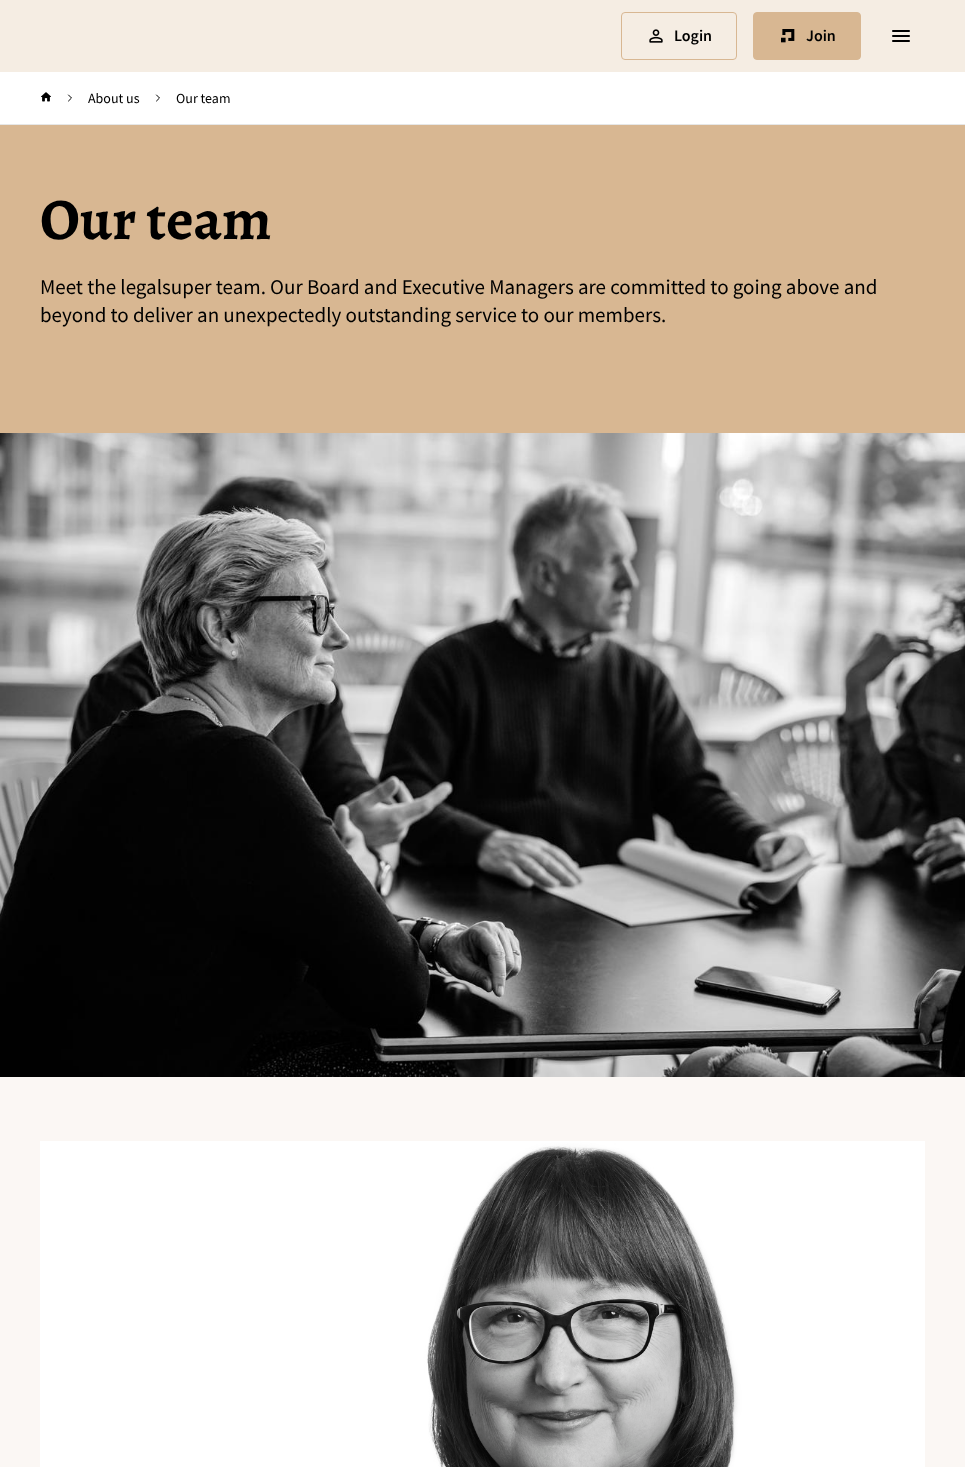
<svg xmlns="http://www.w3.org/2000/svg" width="965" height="1467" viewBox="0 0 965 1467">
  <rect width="100%" height="100%" fill="#ffffff"/>
  <rect x="0" y="0" width="965" height="72" fill="#f5ede3"/>
  <rect x="621.5" y="12.5" width="115" height="47" rx="3.5" fill="none" stroke="#d8b792"/>
  <image x="649" y="29" width="14" height="14" href="img1.png"/>
  <text x="674" y="41" font-family="Source Sans Pro" font-size="16" font-weight="600" fill="#000000">Login</text>
  <rect x="753.5" y="12.5" width="107" height="47" rx="3.5" fill="#d8b792" stroke="#d8b792"/>
  <image x="781" y="29" width="14" height="14" href="img2.png"/>
  <text x="806" y="41" font-family="Source Sans Pro" font-size="16" font-weight="600" fill="#000000">Join</text>
  <image x="892" y="30" width="18" height="12" href="img3.png"/>
  <rect x="0" y="124" width="965" height="1" fill="#e6e7e7"/>
  <image x="41" y="92" width="10" height="10" href="img4.png"/>
  <path d="M68.5 101L71.5 98L68.5 95" fill="none" stroke="#000000" stroke-linecap="round" stroke-linejoin="round"/>
  <text x="88" y="103" font-family="Source Sans Pro" font-size="14" fill="#000000">About us</text>
  <path d="M156.5 101L159.5 98L156.5 95" fill="none" stroke="#000000" stroke-linecap="round" stroke-linejoin="round"/>
  <text x="176" y="103" font-family="Source Sans Pro" font-size="14" fill="#000000">Our team</text>
  <rect x="0" y="125" width="965" height="308" fill="#d8b792"/>
  <text x="40" y="239" font-family="Alegreya" font-size="59" font-weight="bold" fill="#000000">Our team</text>
  <text x="40" y="294" font-family="Source Sans Pro" font-size="21" fill="#000000">Meet the legalsuper team. Our Board and Executive Managers are committed to going above and</text>
  <text x="40" y="322" font-family="Source Sans Pro" font-size="21" fill="#000000">beyond to deliver an unexpectedly outstanding service to our members.</text>
  <image x="0" y="433" width="965" height="644" href="img5.png"/>
  <rect x="0" y="1077" width="965" height="390" fill="#fbf7f4"/>
  <image x="40" y="1141" width="885" height="326" href="img6.png"/>
</svg>
